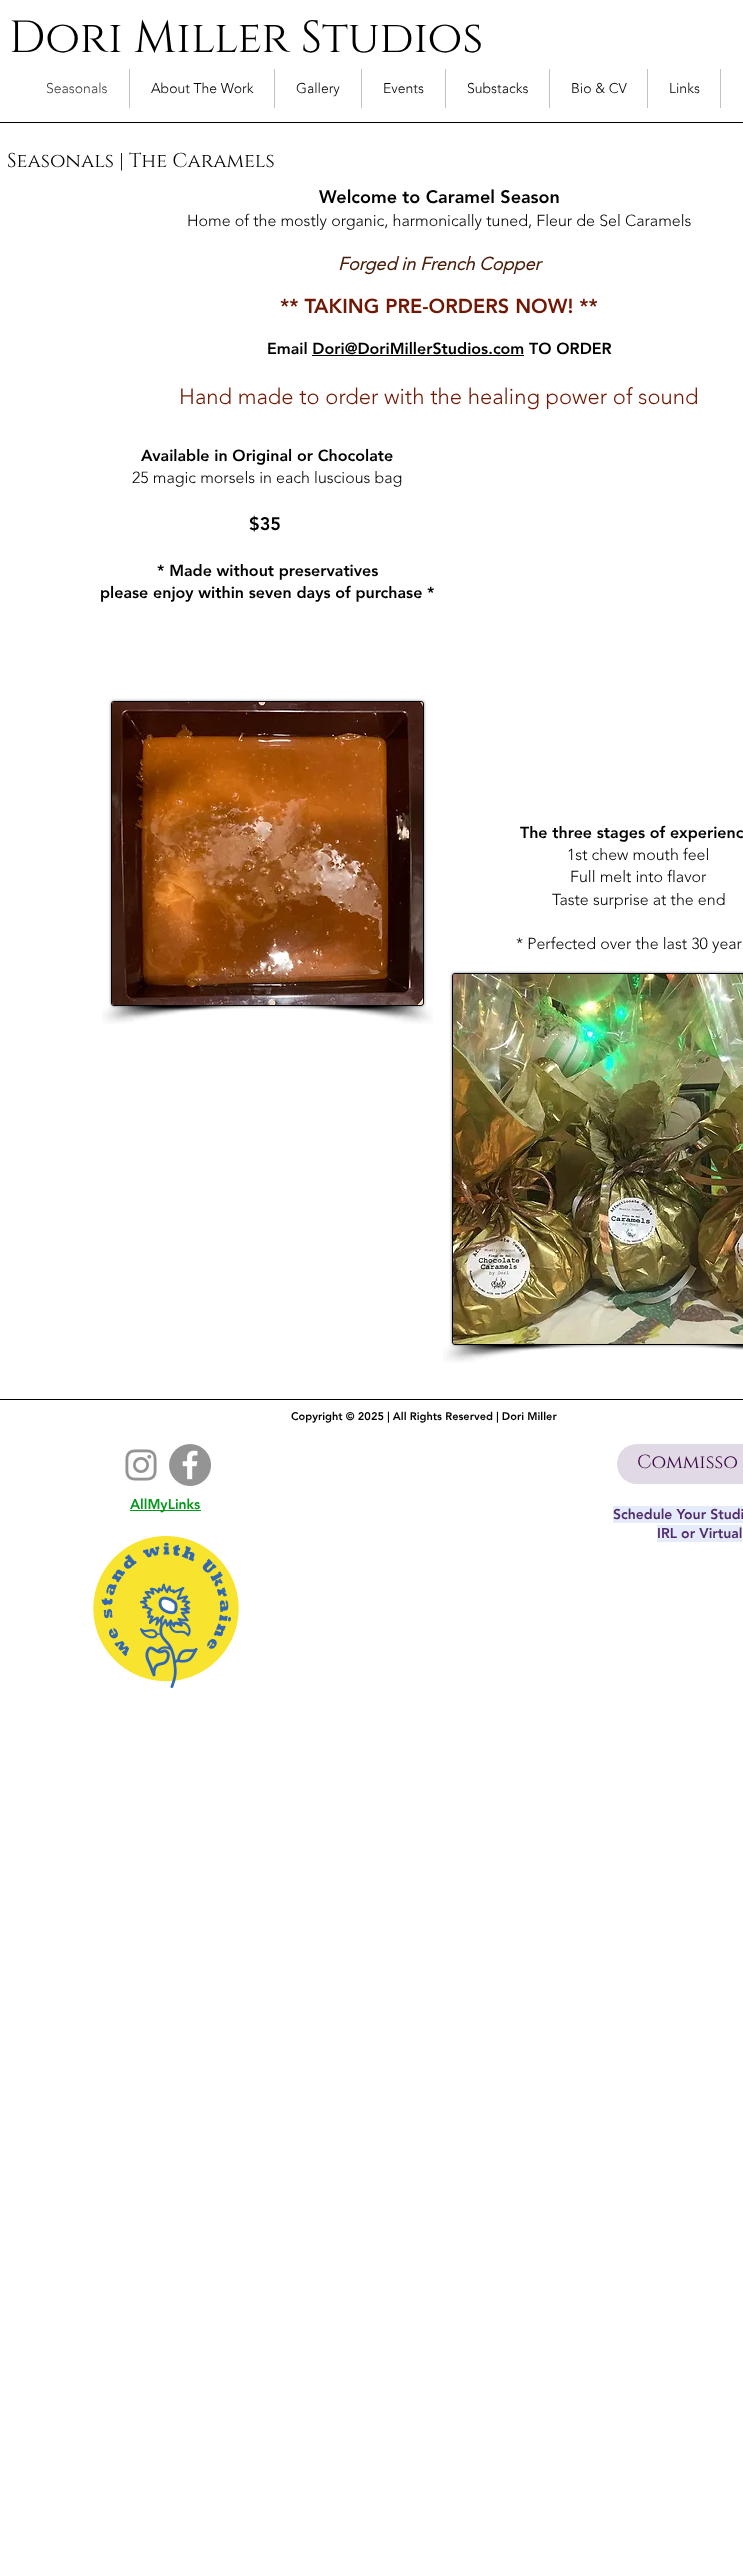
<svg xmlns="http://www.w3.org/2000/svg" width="743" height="2554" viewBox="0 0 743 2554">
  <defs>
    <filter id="blur1" x="-50%" y="-200%" width="200%" height="500%"><feGaussianBlur stdDeviation="1.5"/></filter>
  </defs>
  <rect width="100%" height="100%" fill="#ffffff"/>
  <text x="9" y="52" font-family="Cinzel" font-size="45" fill="#000000">Dori Miller Studios</text>
  <text x="46" y="93" font-family="'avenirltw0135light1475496'" font-size="14" font-weight="300" fill="#404040">Seasonals</text>
  <rect x="129" y="69" width="1" height="39" fill="#c2c2c2"/>
  <text x="151" y="93" font-family="'avenirltw0135light1475496'" font-size="14" font-weight="300" fill="#000000">About The Work</text>
  <rect x="274" y="69" width="1" height="39" fill="#c2c2c2"/>
  <text x="296" y="93" font-family="'avenirltw0135light1475496'" font-size="14" font-weight="300" fill="#000000">Gallery</text>
  <rect x="361" y="69" width="1" height="39" fill="#c2c2c2"/>
  <text x="383" y="93" font-family="'avenirltw0135light1475496'" font-size="14" font-weight="300" fill="#000000">Events</text>
  <rect x="445" y="69" width="1" height="39" fill="#c2c2c2"/>
  <text x="467" y="93" font-family="'avenirltw0135light1475496'" font-size="14" font-weight="300" fill="#000000">Substacks</text>
  <rect x="549" y="69" width="1" height="39" fill="#c2c2c2"/>
  <text x="571" y="93" font-family="'avenirltw0135light1475496'" font-size="14" font-weight="300" fill="#000000">Bio &amp; CV</text>
  <rect x="647" y="69" width="1" height="39" fill="#c2c2c2"/>
  <text x="669" y="93" font-family="'avenirltw0135light1475496'" font-size="14" font-weight="300" fill="#000000">Links</text>
  <rect x="720" y="69" width="1" height="39" fill="#c2c2c2"/>
  <rect x="0" y="122" width="743" height="1" fill="#000000"/>
  <text x="7" y="167" font-family="Cinzel" font-size="20" fill="#000000">Seasonals | The Caramels</text>
  <text x="319" y="203" font-family="'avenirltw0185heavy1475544'" font-size="18" font-weight="900" fill="#000000">Welcome to Caramel Season</text>
  <text x="187" y="226" font-family="'avenirltw0135light1475496'" font-size="16" font-weight="300" fill="#000000">Home of the mostly organic, harmonically tuned, Fleur de Sel Caramels</text>
  <text x="338" y="270" font-family="'avenirltw0135light1475496'" font-size="18" font-weight="bold" font-style="italic" fill="#491d09">Forged in French Copper</text>
  <text x="280" y="313" font-family="'avenirltw0185heavy1475544'" font-size="20" font-weight="900" fill="#711804">** TAKING PRE-ORDERS NOW! **</text>
  <text x="267" y="354" font-family="'avenirltw0185heavy1475544'" font-size="16" font-weight="900" fill="#000000">Email Dori@DoriMillerStudios.com TO ORDER</text>
  <rect x="312" y="355" width="212" height="1" fill="#000000"/>
  <text x="179" y="404" font-family="'avenirltw0135light1475496'" font-size="22" font-weight="300" fill="#711804">Hand made to order with the healing power of sound</text>
  <text x="141" y="461" font-family="'avenirltw0185heavy1475544'" font-size="16" font-weight="900" fill="#000000">Available in Original or Chocolate</text>
  <text x="132" y="483" font-family="'avenirltw0135light1475496'" font-size="16" font-weight="300" fill="#000000">25 magic morsels in each luscious bag</text>
  <text x="249" y="530" font-family="'avenirltw0185heavy1475544'" font-size="18" font-weight="900" fill="#000000">$35</text>
  <text x="157" y="576" font-family="'avenirltw0185heavy1475544'" font-size="16" font-weight="900" fill="#000000">* Made without preservatives</text>
  <text x="100" y="598" font-family="'avenirltw0185heavy1475544'" font-size="16" font-weight="900" fill="#000000">please enjoy within seven days of purchase *</text>
  <rect x="111" y="701" width="313" height="305" rx="3" fill="#000000" fill-opacity="0.5" filter="url(#blur1)"/>
  <rect x="111.5" y="701.5" width="312" height="304" rx="2.5" fill="none" stroke="#000000"/>
  <image x="112" y="702" width="311" height="303" href="img1.png"/>
  <image x="102" y="1006" width="154" height="18" href="img2.png"/>
  <image x="279" y="1006" width="154" height="18" href="img3.png"/>
  <text x="520" y="838" font-family="'avenirltw0185heavy1475544'" font-size="16" font-weight="900" fill="#000000">The three stages of experienc</text>
  <text x="567" y="860" font-family="'avenirltw0135light1475496'" font-size="16" font-weight="300" fill="#000000">1st chew mouth feel</text>
  <text x="570" y="882" font-family="'avenirltw0135light1475496'" font-size="16" font-weight="300" fill="#000000">Full melt into flavor</text>
  <text x="552" y="905" font-family="'avenirltw0135light1475496'" font-size="16" font-weight="300" fill="#000000">Taste surprise at the end</text>
  <text x="516" y="949" font-family="'avenirltw0135light1475496'" font-size="16" font-weight="300" fill="#000000">* Perfected over the last 30 year</text>
  <rect x="452" y="973" width="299" height="372" rx="3" fill="#000000" fill-opacity="0.5" filter="url(#blur1)"/>
  <rect x="452.5" y="973.5" width="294" height="371" rx="2.5" fill="none" stroke="#000000"/>
  <image x="453" y="974" width="290" height="370" href="img4.png"/>
  <image x="443" y="1345" width="154" height="18" href="img2.png"/>
  <image x="679" y="1345" width="64" height="5" href="img5.png"/>
  <rect x="0" y="1399" width="743" height="1" fill="#000000"/>
  <text x="291" y="1420" font-family="'avenirltw0185heavy1475544'" font-size="11" font-weight="900" fill="#000000">Copyright © 2025 | All Rights Reserved | Dori Miller</text>
  <image x="125" y="1449" width="32" height="32" href="img6.png"/>
  <image x="169" y="1444" width="42" height="42" href="img7.png"/>
  <rect x="617" y="1444" width="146" height="40" rx="20" fill="#e1d9e3"/>
  <text x="637" y="1468" font-family="Cinzel" font-size="19" fill="#3a0247">Commisso</text>
  <rect x="130" y="1510" width="71" height="1" fill="#06981c"/>
  <text x="130" y="1509" font-family="'avenirltw0185heavy1475544'" font-size="14" font-weight="900" fill="#06981c">AllMyLinks</text>
  <rect x="613" y="1506" width="130" height="17" fill="#e5ebfa"/>
  <text x="613" y="1519" font-family="'avenirltw0185heavy1475544'" font-size="14" font-weight="900" fill="#502d6d">Schedule Your Studi</text>
  <rect x="657" y="1525" width="85" height="17" fill="#e5ebfa"/>
  <text x="657" y="1538" font-family="'avenirltw0185heavy1475544'" font-size="14" font-weight="900" fill="#502d6d">IRL or Virtual</text>
  <image x="93" y="1536" width="146" height="152" href="img8.png"/>
</svg>
